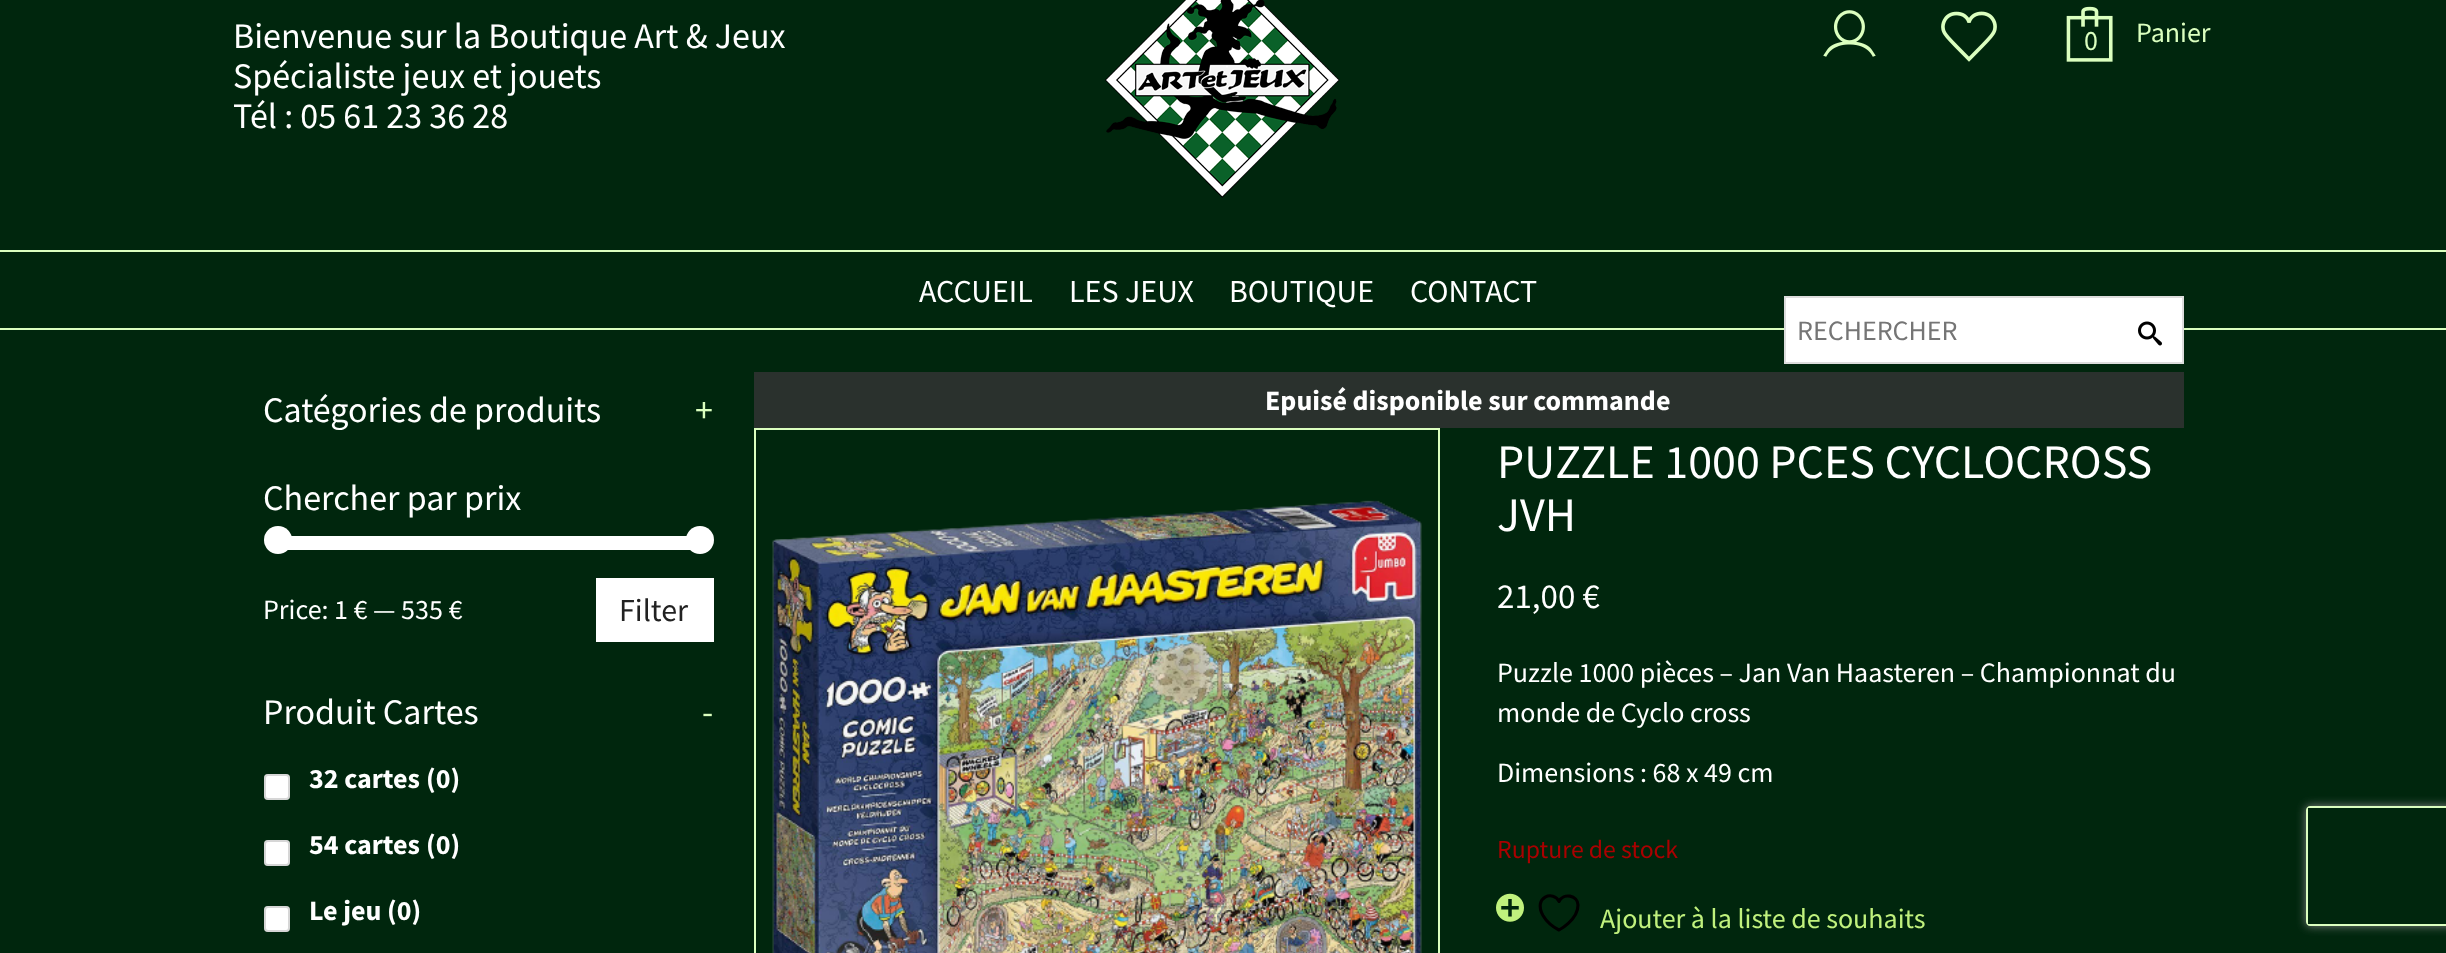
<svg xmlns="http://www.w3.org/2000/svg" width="2446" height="953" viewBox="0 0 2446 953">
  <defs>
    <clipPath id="clip1"><path d="M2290 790H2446V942H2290ZM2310 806H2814C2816 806 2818 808 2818 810V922C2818 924 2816 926 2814 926H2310C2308 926 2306 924 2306 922V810C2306 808 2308 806 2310 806Z" clip-rule="evenodd"/></clipPath>
    <filter id="blur1" x="-50%" y="-200%" width="200%" height="500%"><feGaussianBlur stdDeviation="5"/></filter>
  </defs>
  <rect width="100%" height="100%" fill="#00260d"/>
  <text x="233" y="48" font-family="Source Sans Pro" font-size="36" fill="#ffffff">Bienvenue sur la Boutique Art &amp; Jeux</text>
  <text x="233" y="88" font-family="Source Sans Pro" font-size="36" fill="#ffffff">Spécialiste jeux et jouets</text>
  <text x="233" y="128" font-family="Source Sans Pro" font-size="36" fill="#ffffff">Tél : 05 61 23 36 28</text>
  <image x="1105" y="0" width="235" height="198" href="img1.png"/>
  <image x="1823" y="10" width="53" height="47" href="img2.png"/>
  <image x="1941" y="11" width="56" height="51" href="img3.png"/>
  <image x="2066" y="6" width="47" height="56" href="img4.png"/>
  <text x="2136" y="42" font-family="Source Sans Pro" font-size="28" fill="#dbffbf">Panier</text>
  <text x="2084" y="50" font-family="Source Sans Pro" font-size="28" fill="#dbffbf">0</text>
  <rect x="0" y="250" width="2446" height="2" fill="#dbffbf"/>
  <rect x="0" y="328" width="2446" height="2" fill="#dbffbf"/>
  <text x="919" y="302" font-family="Source Sans Pro" font-size="32" fill="#ffffff">ACCUEIL</text>
  <text x="1069" y="302" font-family="Source Sans Pro" font-size="32" fill="#ffffff">LES JEUX</text>
  <text x="1229" y="302" font-family="Source Sans Pro" font-size="32" fill="#ffffff">BOUTIQUE</text>
  <text x="1410" y="302" font-family="Source Sans Pro" font-size="32" fill="#ffffff">CONTACT</text>
  <rect x="1785" y="297" width="398" height="66" fill="#ffffff" stroke="#dddddd" stroke-width="2"/>
  <text x="1797" y="340" font-family="Source Sans Pro" font-size="28" fill="#757575">RECHERCHER</text>
  <image x="2138" y="321" width="24" height="25" href="img5.png"/>
  <text x="263" y="422" font-family="Source Sans Pro" font-size="36" fill="#ffffff">Catégories de produits</text>
  <text x="695" y="422" font-family="Source Sans Pro" font-size="36" fill="#dbffbf">+</text>
  <text x="263" y="510" font-family="Source Sans Pro" font-size="36" fill="#ffffff">Chercher par prix</text>
  <rect x="287" y="536" width="404" height="14" fill="#ffffff"/>
  <circle cx="278" cy="540" r="14" fill="#ffffff"/>
  <circle cx="700" cy="540" r="14" fill="#ffffff"/>
  <text x="263" y="619" font-family="Source Sans Pro" font-size="28" fill="#ffffff">Price: 1 € — 535 €</text>
  <rect x="596" y="578" width="118" height="64" fill="#ffffff"/>
  <text x="619" y="621" font-family="Source Sans Pro" font-size="32" fill="#222222">Filter</text>
  <text x="263" y="724" font-family="Source Sans Pro" font-size="36" fill="#ffffff">Produit Cartes</text>
  <text x="702" y="724" font-family="Source Sans Pro" font-size="36" fill="#dbffbf">-</text>
  <rect x="264" y="774" width="26" height="26" rx="4" fill="#ffffff"/>
  <rect x="265" y="775" width="24" height="24" rx="3" fill="none" stroke="#767676" stroke-opacity="0.3" stroke-width="2"/>
  <text x="309" y="788" font-family="Source Sans Pro" font-size="28" font-weight="bold" fill="#ffffff">32 cartes</text>
  <text x="426" y="788" font-family="Source Sans Pro" font-size="28" font-weight="bold" fill="#ffffff">(0)</text>
  <rect x="264" y="840" width="26" height="26" rx="4" fill="#ffffff"/>
  <rect x="265" y="841" width="24" height="24" rx="3" fill="none" stroke="#767676" stroke-opacity="0.3" stroke-width="2"/>
  <text x="309" y="854" font-family="Source Sans Pro" font-size="28" font-weight="bold" fill="#ffffff">54 cartes</text>
  <text x="426" y="854" font-family="Source Sans Pro" font-size="28" font-weight="bold" fill="#ffffff">(0)</text>
  <rect x="264" y="906" width="26" height="26" rx="4" fill="#ffffff"/>
  <rect x="265" y="907" width="24" height="24" rx="3" fill="none" stroke="#767676" stroke-opacity="0.3" stroke-width="2"/>
  <text x="309" y="920" font-family="Source Sans Pro" font-size="28" font-weight="bold" fill="#ffffff">Le jeu</text>
  <text x="387" y="920" font-family="Source Sans Pro" font-size="28" font-weight="bold" fill="#ffffff">(0)</text>
  <rect x="754" y="372" width="1430" height="56" fill="#2a312d"/>
  <text x="1265" y="410" font-family="Source Sans Pro" font-size="28" font-weight="bold" fill="#ffffff">Epuisé disponible sur commande</text>
  <rect x="755" y="429" width="684" height="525" fill="none" stroke="#dbffbf" stroke-width="2"/>
  <image x="772" y="500" width="650" height="453" href="img6.png"/>
  <text x="1497" y="478" font-family="Source Sans Pro" font-size="48" fill="#ffffff">PUZZLE 1000 PCES CYCLOCROSS</text>
  <text x="1497" y="531" font-family="Source Sans Pro" font-size="48" fill="#ffffff">JVH</text>
  <text x="1497" y="608" font-family="Source Sans Pro" font-size="35" fill="#ffffff">21,00 €</text>
  <text x="1497" y="682" font-family="Source Sans Pro" font-size="28" fill="#ffffff">Puzzle 1000 pièces – Jan Van Haasteren – Championnat du</text>
  <text x="1497" y="722" font-family="Source Sans Pro" font-size="28" fill="#ffffff">monde de Cyclo cross</text>
  <text x="1497" y="782" font-family="Source Sans Pro" font-size="28" fill="#ffffff">Dimensions : 68 x 49 cm</text>
  <text x="1497" y="858" font-family="Source Sans Pro" font-size="25.75" fill="#aa0000">Rupture de stock</text>
  <image x="1496" y="893" width="28" height="29" href="img7.png"/>
  <path d="M1578 905C1578 895 1563 892.5 1559 901.5C1554 890 1532.5 896.5 1543 915.5C1546.5 921.5 1553 927 1559 930C1559 930 1578 920 1578 905Z" fill="none" stroke="#000000" stroke-width="3.1" stroke-linecap="round" stroke-linejoin="round"/>
  <text x="1600" y="928" font-family="Source Sans Pro" font-size="28" fill="#c0f17d">Ajouter à la liste de souhaits</text>
  <g clip-path="url(#clip1)">
    <rect x="2306" y="806" width="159" height="120" rx="4" fill="#808080" filter="url(#blur1)"/>
  </g>
  <path d="M2310 806C2308 806 2306 808 2306 810V922C2306 924 2308 926 2310 926H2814C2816 926 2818 924 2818 922V810C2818 808 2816 806 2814 806ZM2308 808V924H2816V808Z" fill="#dbffbf" fill-rule="evenodd"/>
</svg>
